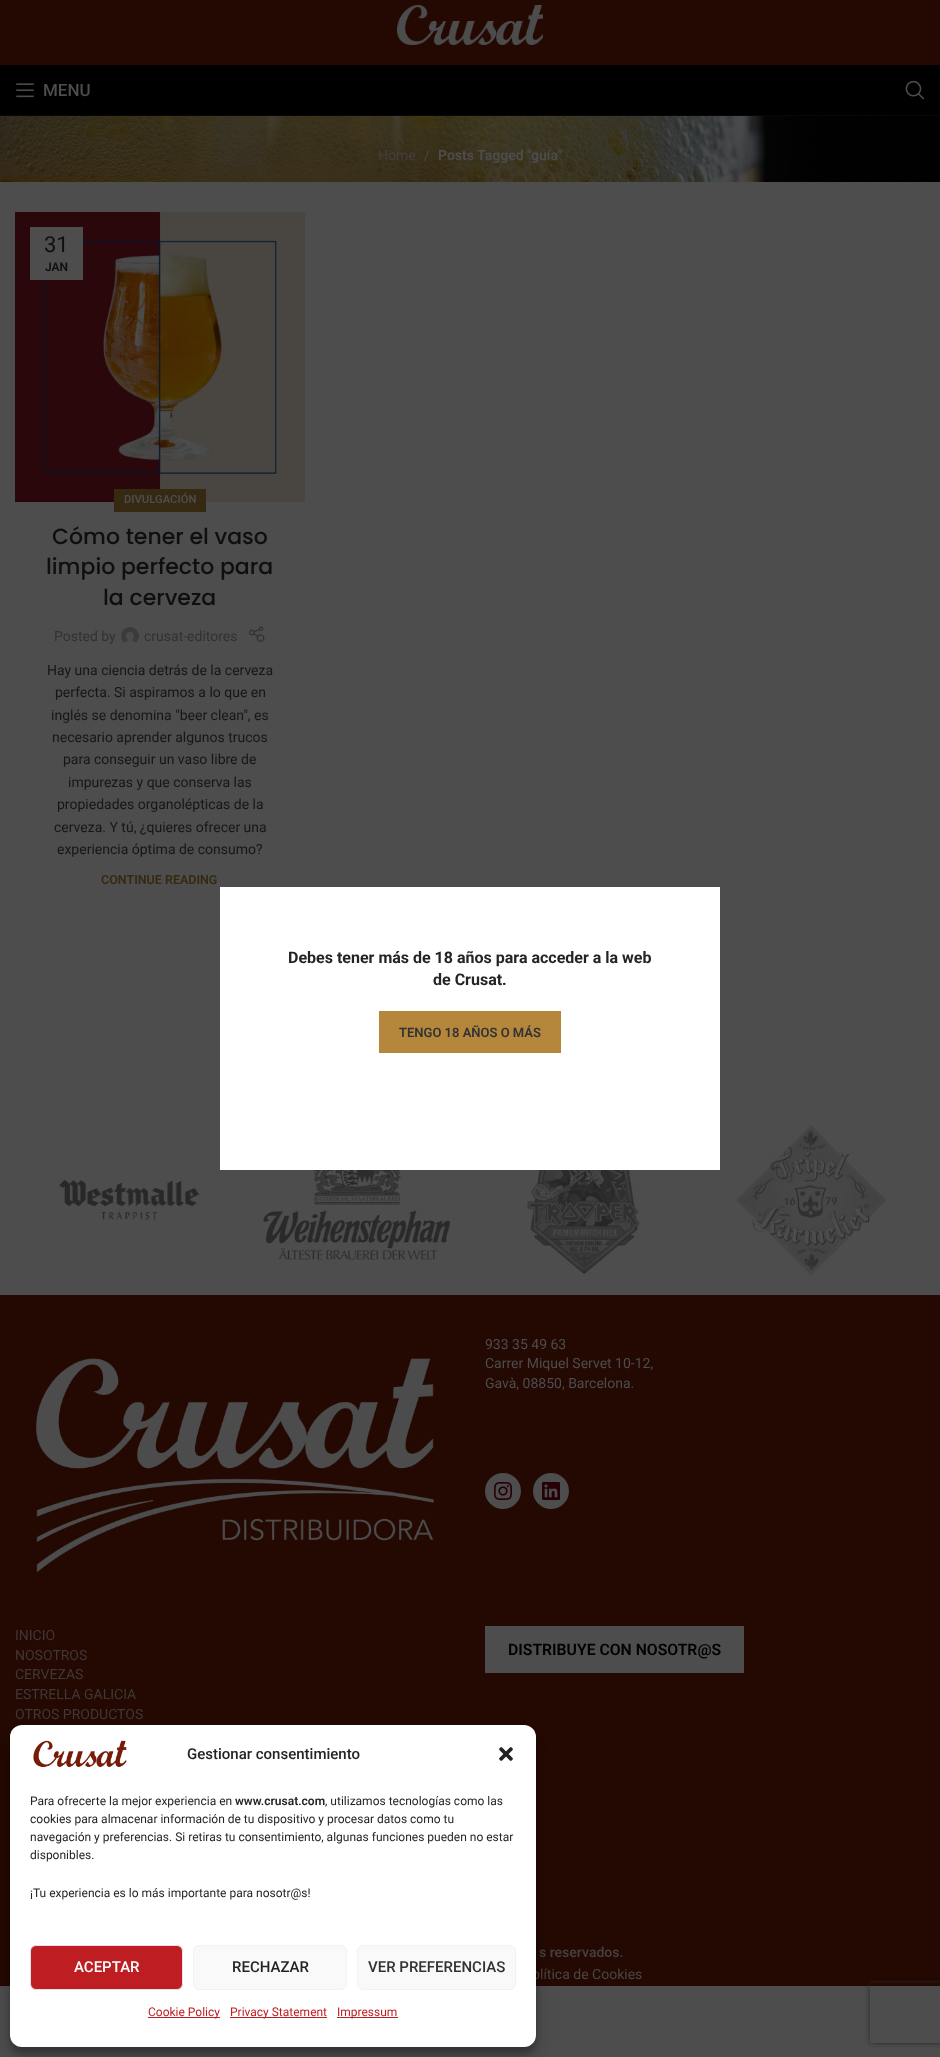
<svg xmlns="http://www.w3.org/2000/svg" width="940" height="2057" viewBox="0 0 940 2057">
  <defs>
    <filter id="blur1" x="-50%" y="-200%" width="200%" height="500%"><feGaussianBlur stdDeviation="3"/></filter>
    <filter id="blur2" x="-50%" y="-200%" width="200%" height="500%"><feGaussianBlur stdDeviation="10"/></filter>
    <clipPath id="clip1"><path d="M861 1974H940V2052H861ZM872 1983H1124C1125 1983 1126 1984 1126 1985V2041C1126 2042 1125 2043 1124 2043H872C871 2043 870 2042 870 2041V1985C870 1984 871 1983 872 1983Z" clip-rule="evenodd"/></clipPath>
    <filter id="blur3" x="-50%" y="-200%" width="200%" height="500%"><feGaussianBlur stdDeviation="2.5"/></filter>
  </defs>
  <rect width="100%" height="100%" fill="#4d4d4d"/>
  <rect x="0" y="0" width="940" height="65" fill="#240802"/>
  <image x="397" y="5" width="146" height="40" href="img1.png"/>
  <rect x="0" y="65" width="940" height="50" fill="#000000"/>
  <rect x="0" y="115" width="940" height="1" fill="#080808"/>
  <image x="16" y="83" width="18" height="15" href="img2.png"/>
  <text x="43" y="96" font-family="Roboto" font-size="17" font-weight="500" fill="#4d4d4d">MENU</text>
  <image x="905" y="80" width="20" height="20" href="img3.png"/>
  <image x="0" y="116" width="940" height="66" href="img4.png"/>
  <text x="378" y="160" font-family="Roboto" font-size="14" fill="#443f3e">Home</text>
  <text x="424" y="160" font-family="Roboto" font-size="14" fill="#494645">/</text>
  <text x="438" y="160" font-family="Roboto" font-size="14" font-weight="600" fill="#4d4d4d">Posts Tagged "guía"</text>
  <image x="15" y="212" width="290" height="290" href="img5.png"/>
  <rect x="30" y="227" width="53" height="53" fill="#4d4d4d"/>
  <text x="44" y="252" font-family="Roboto" font-size="22" fill="#0f0f0f">31</text>
  <text x="45" y="271" font-family="Roboto" font-size="12" font-weight="600" fill="#0f0f0f">JAN</text>
  <rect x="114" y="489" width="92" height="23" fill="#362912"/>
  <text x="124" y="503" font-family="Roboto" font-size="11.25" font-weight="600" fill="#4d4d4d">DIVULGACIÓN</text>
  <text x="52" y="544" font-family="Poppins" font-size="22" font-weight="500" fill="#0f0f0f">Cómo tener el vaso</text>
  <text x="46" y="574" font-family="Poppins" font-size="22" font-weight="500" fill="#0f0f0f">limpio perfecto para</text>
  <text x="103" y="605" font-family="Poppins" font-size="22" font-weight="500" fill="#0f0f0f">la cerveza</text>
  <text x="54" y="641" font-family="Roboto" font-size="14" fill="#323232">Posted by</text>
  <image x="121" y="627" width="18" height="16" href="img6.png"/>
  <text x="144" y="641" font-family="Roboto" font-size="14" fill="#323232">crusat-editores</text>
  <image x="249" y="626" width="16" height="16" href="img7.png"/>
  <text x="47" y="675" font-family="Roboto" font-size="14" fill="#171717">Hay una ciencia detrás de la cerveza</text>
  <text x="55" y="697" font-family="Roboto" font-size="14" fill="#171717">perfecta. Si aspiramos a lo que en</text>
  <text x="51" y="720" font-family="Roboto" font-size="14" fill="#171717">inglés se denomina "beer clean", es</text>
  <text x="52" y="742" font-family="Roboto" font-size="14" fill="#171717">necesario aprender algunos trucos</text>
  <text x="63" y="764" font-family="Roboto" font-size="14" fill="#171717">para conseguir un vaso libre de</text>
  <text x="68" y="787" font-family="Roboto" font-size="14" fill="#171717">impurezas y que conserva las</text>
  <text x="57" y="809" font-family="Roboto" font-size="14" fill="#171717">propiedades organolépticas de la</text>
  <text x="54" y="832" font-family="Roboto" font-size="14" fill="#171717">cerveza. Y tú, ¿quieres ofrecer una</text>
  <text x="57" y="854" font-family="Roboto" font-size="14" fill="#171717">experiencia óptima de consumo?</text>
  <text x="101" y="884" font-family="Roboto" font-size="12.5" font-weight="600" fill="#362912">CONTINUE READING</text>
  <rect x="220" y="887" width="500" height="283" fill="#ffffff"/>
  <text x="288" y="963" font-family="Roboto" font-size="16" font-weight="bold" fill="#242424">Debes tener más de 18 años para acceder a la web</text>
  <text x="433" y="985" font-family="Roboto" font-size="16" font-weight="bold" fill="#242424">de Crusat.</text>
  <rect x="379" y="1011" width="182" height="42" fill="#b4873d"/>
  <text x="399" y="1037" font-family="Roboto" font-size="13" font-weight="600" fill="#323232">TENGO 18 AÑOS O MÁS</text>
  <image x="59" y="1179" width="141" height="41" href="img8.png"/>
  <image x="263" y="1170" width="187" height="90" href="img9.png"/>
  <image x="527" y="1170" width="113" height="104" href="img10.png"/>
  <image x="736" y="1125" width="150" height="150" href="img11.png"/>
  <rect x="0" y="1295" width="940" height="691" fill="#240802"/>
  <image x="36" y="1358" width="398" height="215" href="img12.png"/>
  <text x="485" y="1349" font-family="Roboto" font-size="14" fill="#4d4d4d">933 35 49 63</text>
  <text x="485" y="1368" font-family="Roboto" font-size="14" fill="#4d4d4d">Carrer Miquel Servet 10-12,</text>
  <text x="485" y="1388" font-family="Roboto" font-size="14" fill="#4d4d4d">Gavà, 08850, Barcelona.</text>
  <circle cx="503" cy="1491" r="18" fill="#4d4d4d"/>
  <image x="494" y="1482" width="18" height="18" href="img13.png"/>
  <circle cx="551" cy="1491" r="18" fill="#4d4d4d"/>
  <image x="542" y="1482" width="18" height="18" href="img14.png"/>
  <text x="15" y="1640" font-family="Roboto" font-size="14" fill="#413836">INICIO</text>
  <text x="15" y="1660" font-family="Roboto" font-size="14" fill="#413836">NOSOTROS</text>
  <text x="15" y="1679" font-family="Roboto" font-size="14" fill="#413836">CERVEZAS</text>
  <text x="15" y="1699" font-family="Roboto" font-size="14" fill="#413836">ESTRELLA GALICIA</text>
  <text x="15" y="1719" font-family="Roboto" font-size="14" fill="#413836">OTROS PRODUCTOS</text>
  <rect x="485" y="1626" width="259" height="47" fill="#4d4d4d"/>
  <text x="508" y="1655" font-family="Roboto" font-size="15.75" font-weight="600" fill="#000000">DISTRIBUYE CON NOSOTR@S</text>
  <text x="539" y="1957" font-family="Roboto" font-size="14" font-weight="600" fill="#443f3e">s reservados.</text>
  <text x="532" y="1979" font-family="Roboto" font-size="14" fill="#494645">olítica de Cookies</text>
  <rect x="10" y="1731" width="526" height="322" rx="12" fill="#000000" fill-opacity="0.23" filter="url(#blur1)"/>
  <rect x="10" y="1735" width="526" height="322" rx="12" fill="#000000" fill-opacity="0.19" filter="url(#blur2)"/>
  <rect x="10" y="1725" width="526" height="322" rx="12" fill="#ffffff"/>
  <image x="33" y="1740" width="94" height="28" href="img15.png"/>
  <text x="187" y="1759" font-family="Roboto" font-size="15" font-weight="500" fill="#242424">Gestionar consentimiento</text>
  <image x="499" y="1747" width="14" height="14" href="img16.png"/>
  <text x="30" y="1805" font-family="Roboto" font-size="12" fill="#242424">Para ofrecerte la mejor experiencia en</text>
  <text x="235" y="1805" font-family="Roboto" font-size="12" font-weight="600" fill="#242424">www.crusat.com</text>
  <text x="325" y="1805" font-family="Roboto" font-size="12" fill="#242424">, utilizamos tecnologías como las</text>
  <text x="30" y="1823" font-family="Roboto" font-size="12" fill="#242424">cookies para almacenar información de tu dispositivo y procesar datos como tu</text>
  <text x="30" y="1841" font-family="Roboto" font-size="12" fill="#242424">navegación y preferencias. Si retiras tu consentimiento, algunas funciones pueden no estar</text>
  <text x="30" y="1859" font-family="Roboto" font-size="12" fill="#242424">disponibles.</text>
  <text x="30" y="1897" font-family="Roboto" font-size="12" fill="#242424">¡Tu experiencia es lo más importante para nosotr@s!</text>
  <rect x="30.5" y="1945.5" width="152" height="44" rx="5.5" fill="#be1e21" stroke="#e3e3e3"/>
  <text x="74" y="1972" font-family="Roboto" font-size="15" font-weight="500" fill="#ffffff">ACEPTAR</text>
  <rect x="193.5" y="1945.5" width="153" height="44" rx="5.5" fill="#f9f9f9" stroke="#f2f2f2"/>
  <text x="232" y="1972" font-family="Roboto" font-size="15" font-weight="500" fill="#242424">RECHAZAR</text>
  <rect x="357.5" y="1945.5" width="158" height="44" rx="5.5" fill="#f9f9f9" stroke="#f2f2f2"/>
  <text x="368" y="1972" font-family="Roboto" font-size="15" font-weight="500" fill="#323232">VER PREFERENCIAS</text>
  <rect x="148" y="2017" width="72" height="1" fill="#be1e21"/>
  <text x="148" y="2016" font-family="Roboto" font-size="12" fill="#be1e21">Cookie Policy</text>
  <rect x="230" y="2017" width="97" height="1" fill="#be1e21"/>
  <text x="230" y="2016" font-family="Roboto" font-size="12" fill="#be1e21">Privacy Statement</text>
  <rect x="337" y="2017" width="61" height="1" fill="#be1e21"/>
  <text x="337" y="2016" font-family="Roboto" font-size="12" fill="#be1e21">Impressum</text>
  <g clip-path="url(#clip1)">
    <rect x="870" y="1983" width="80" height="60" rx="2" fill="#262626" filter="url(#blur3)"/>
  </g>
</svg>
